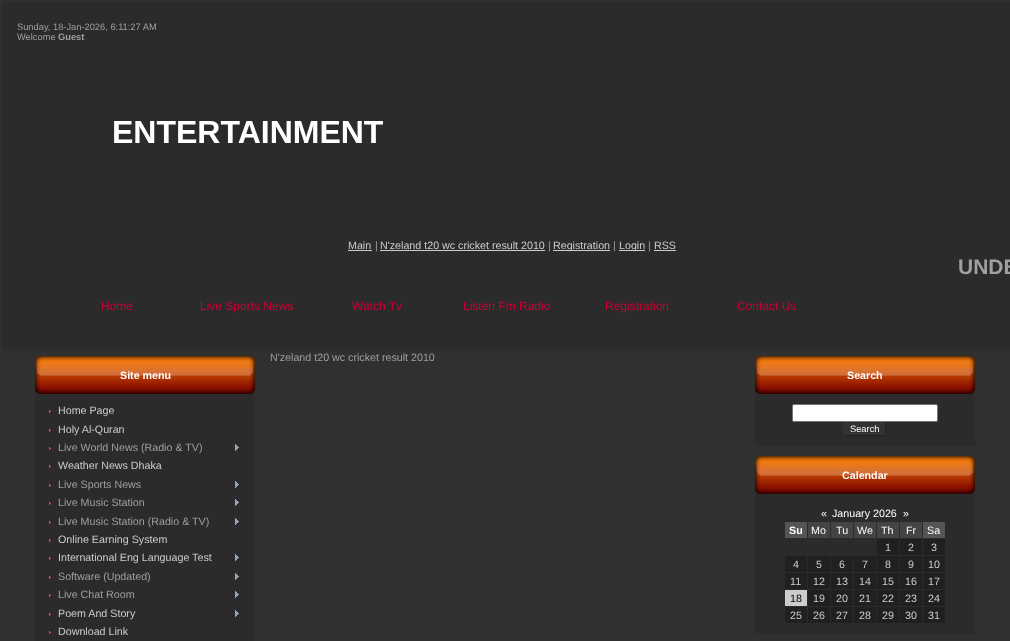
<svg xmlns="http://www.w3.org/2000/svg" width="1010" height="641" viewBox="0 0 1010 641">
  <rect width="100%" height="100%" fill="#303030"/>
  <rect x="2" y="2" width="1008" height="347" fill="#2b2b2b"/>
  <text x="17" y="30" font-family="Liberation Sans" font-size="9.3" fill="#9f9f9f">Sunday, 18-Jan-2026, 6:11:27 AM</text>
  <text x="17" y="40" font-family="Liberation Sans" font-size="9.3" fill="#9f9f9f">Welcome</text>
  <text x="58" y="40" font-family="Liberation Sans" font-size="9.3" font-weight="bold" fill="#9f9f9f">Guest</text>
  <text x="112" y="143" font-family="Liberation Sans" font-size="32" font-weight="bold" fill="#ffffff">ENTERTAINMENT</text>
  <text x="348" y="249" font-family="Liberation Sans" font-size="10.7" fill="#cccccc">Main</text>
  <rect x="348" y="250" width="24" height="1" fill="#cccccc"/>
  <text x="375" y="249" font-family="Liberation Sans" font-size="10.7" fill="#9f9f9f">|</text>
  <text x="380" y="249" font-family="Liberation Sans" font-size="10.7" fill="#cccccc">N'zeland t20 wc cricket result 2010</text>
  <rect x="380" y="250" width="165" height="1" fill="#cccccc"/>
  <text x="548" y="249" font-family="Liberation Sans" font-size="10.7" fill="#9f9f9f">|</text>
  <rect x="553" y="250" width="57" height="1" fill="#cccccc"/>
  <text x="553" y="249" font-family="Liberation Sans" font-size="10.7" fill="#cccccc">Registration</text>
  <text x="613" y="249" font-family="Liberation Sans" font-size="10.7" fill="#9f9f9f">|</text>
  <rect x="619" y="250" width="26" height="1" fill="#cccccc"/>
  <text x="619" y="249" font-family="Liberation Sans" font-size="10.7" fill="#cccccc">Login</text>
  <text x="648" y="249" font-family="Liberation Sans" font-size="10.7" fill="#9f9f9f">|</text>
  <text x="654" y="249" font-family="Liberation Sans" font-size="10.7" fill="#cccccc">RSS</text>
  <rect x="654" y="250" width="22" height="1" fill="#cccccc"/>
  <text x="958" y="274" font-family="Liberation Sans" font-size="21" font-weight="bold" fill="#9f9f9f">UNDE</text>
  <text x="101" y="310" font-family="Liberation Sans" font-size="12" fill="#cc0033">Home</text>
  <text x="200" y="310" font-family="Liberation Sans" font-size="12" fill="#cc0033">Live Sports News</text>
  <text x="352" y="310" font-family="Liberation Sans" font-size="12" fill="#cc0033">Watch Tv</text>
  <text x="463" y="310" font-family="Liberation Sans" font-size="12" fill="#cc0033">Listen Fm Radio</text>
  <text x="605" y="310" font-family="Liberation Sans" font-size="12" fill="#cc0033">Registration</text>
  <text x="737" y="310" font-family="Liberation Sans" font-size="12" fill="#cc0033">Contact Us</text>
  <text x="270" y="361" font-family="Liberation Sans" font-size="10.7" fill="#9f9f9f">N'zeland t20 wc cricket result 2010</text>
  <image x="35" y="356" width="220" height="38" href="img1.png"/>
  <text x="120" y="379" font-family="Liberation Sans" font-size="10.7" font-weight="bold" fill="#ffffff">Site menu</text>
  <rect x="35" y="394" width="220" height="247" fill="#2b2b2b"/>
  <image x="49" y="410" width="2" height="3" href="img2.png"/>
  <text x="58" y="414" font-family="Liberation Sans" font-size="10.7" fill="#cccccc">Home Page</text>
  <image x="49" y="429" width="2" height="3" href="img2.png"/>
  <text x="58" y="433" font-family="Liberation Sans" font-size="10.7" fill="#cccccc">Holy Al-Quran</text>
  <image x="49" y="447" width="2" height="3" href="img2.png"/>
  <text x="58" y="451" font-family="Liberation Sans" font-size="10.7" fill="#9f9f9f">Live World News (Radio &amp; TV)</text>
  <image x="235" y="444" width="4" height="7" href="img3.png"/>
  <image x="49" y="465" width="2" height="3" href="img2.png"/>
  <text x="58" y="469" font-family="Liberation Sans" font-size="10.7" fill="#cccccc">Weather News Dhaka</text>
  <image x="49" y="484" width="2" height="3" href="img2.png"/>
  <text x="58" y="488" font-family="Liberation Sans" font-size="10.7" fill="#9f9f9f">Live Sports News</text>
  <image x="235" y="481" width="4" height="7" href="img3.png"/>
  <image x="49" y="502" width="2" height="3" href="img2.png"/>
  <text x="58" y="506" font-family="Liberation Sans" font-size="10.7" fill="#9f9f9f">Live Music Station</text>
  <image x="235" y="499" width="4" height="7" href="img3.png"/>
  <image x="49" y="521" width="2" height="3" href="img2.png"/>
  <text x="58" y="525" font-family="Liberation Sans" font-size="10.7" fill="#9f9f9f">Live Music Station (Radio &amp; TV)</text>
  <image x="235" y="518" width="4" height="7" href="img3.png"/>
  <image x="49" y="539" width="2" height="3" href="img2.png"/>
  <text x="58" y="543" font-family="Liberation Sans" font-size="10.7" fill="#cccccc">Online Earning System</text>
  <image x="49" y="557" width="2" height="3" href="img2.png"/>
  <text x="58" y="561" font-family="Liberation Sans" font-size="10.7" fill="#cccccc">International Eng Language Test</text>
  <image x="235" y="554" width="4" height="7" href="img3.png"/>
  <image x="49" y="576" width="2" height="3" href="img2.png"/>
  <text x="58" y="580" font-family="Liberation Sans" font-size="10.7" fill="#9f9f9f">Software (Updated)</text>
  <image x="235" y="573" width="4" height="7" href="img3.png"/>
  <image x="49" y="594" width="2" height="3" href="img2.png"/>
  <text x="58" y="598" font-family="Liberation Sans" font-size="10.7" fill="#9f9f9f">Live Chat Room</text>
  <image x="235" y="591" width="4" height="7" href="img3.png"/>
  <image x="49" y="613" width="2" height="3" href="img2.png"/>
  <text x="58" y="617" font-family="Liberation Sans" font-size="10.7" fill="#cccccc">Poem And Story</text>
  <image x="235" y="610" width="4" height="7" href="img3.png"/>
  <image x="49" y="631" width="2" height="3" href="img2.png"/>
  <text x="58" y="635" font-family="Liberation Sans" font-size="10.7" fill="#cccccc">Download Link</text>
  <image x="755" y="356" width="220" height="38" href="img1.png"/>
  <text x="847" y="379" font-family="Liberation Sans" font-size="10.7" font-weight="bold" fill="#ffffff">Search</text>
  <rect x="755" y="394" width="220" height="52" fill="#2b2b2b"/>
  <rect x="792.5" y="404.5" width="145" height="17" rx="1.5" fill="#ffffff" stroke="#767676"/>
  <rect x="844" y="422" width="41" height="13" fill="#333333"/>
  <rect x="885" y="422" width="1" height="14" fill="#222222"/>
  <rect x="843" y="435" width="43" height="1" fill="#222222"/>
  <rect x="843" y="422" width="1" height="14" fill="#333333"/>
  <text x="850" y="432" font-family="Liberation Sans" font-size="9.3" fill="#ffffff">Search</text>
  <image x="755" y="456" width="220" height="38" href="img1.png"/>
  <text x="842" y="479" font-family="Liberation Sans" font-size="10.7" font-weight="bold" fill="#ffffff">Calendar</text>
  <rect x="755" y="494" width="220" height="140" fill="#2b2b2b"/>
  <text x="821" y="517" font-family="Liberation Sans" font-size="10.7" fill="#ffffff">«</text>
  <text x="832" y="517" font-family="Liberation Sans" font-size="10.7" fill="#ffffff">January 2026</text>
  <text x="903" y="517" font-family="Liberation Sans" font-size="10.7" fill="#ffffff">»</text>
  <rect x="785" y="522" width="22" height="16" fill="#555555"/>
  <text x="789" y="534" font-family="Liberation Sans" font-size="10.7" font-weight="bold" fill="#ffffff">Su</text>
  <rect x="808" y="522" width="22" height="16" fill="#444444"/>
  <text x="811" y="534" font-family="Liberation Sans" font-size="10.7" fill="#ffffff">Mo</text>
  <rect x="831" y="522" width="22" height="16" fill="#444444"/>
  <text x="836" y="534" font-family="Liberation Sans" font-size="10.7" fill="#ffffff">Tu</text>
  <rect x="854" y="522" width="22" height="16" fill="#444444"/>
  <text x="857" y="534" font-family="Liberation Sans" font-size="10.7" fill="#ffffff">We</text>
  <rect x="877" y="522" width="22" height="16" fill="#444444"/>
  <text x="881" y="534" font-family="Liberation Sans" font-size="10.7" fill="#ffffff">Th</text>
  <rect x="900" y="522" width="22" height="16" fill="#444444"/>
  <text x="906" y="534" font-family="Liberation Sans" font-size="10.7" fill="#ffffff">Fr</text>
  <rect x="923" y="522" width="22" height="16" fill="#555555"/>
  <text x="927" y="534" font-family="Liberation Sans" font-size="10.7" fill="#ffffff">Sa</text>
  <rect x="877" y="539" width="22" height="16" fill="#202020"/>
  <text x="885" y="551" font-family="Liberation Sans" font-size="10.7" fill="#cccccc">1</text>
  <rect x="900" y="539" width="22" height="16" fill="#202020"/>
  <text x="908" y="551" font-family="Liberation Sans" font-size="10.7" fill="#cccccc">2</text>
  <rect x="923" y="539" width="22" height="16" fill="#202020"/>
  <text x="931" y="551" font-family="Liberation Sans" font-size="10.7" fill="#cccccc">3</text>
  <rect x="785" y="556" width="22" height="16" fill="#202020"/>
  <text x="793" y="568" font-family="Liberation Sans" font-size="10.7" fill="#cccccc">4</text>
  <rect x="808" y="556" width="22" height="16" fill="#202020"/>
  <text x="816" y="568" font-family="Liberation Sans" font-size="10.7" fill="#cccccc">5</text>
  <rect x="831" y="556" width="22" height="16" fill="#202020"/>
  <text x="839" y="568" font-family="Liberation Sans" font-size="10.7" fill="#cccccc">6</text>
  <rect x="854" y="556" width="22" height="16" fill="#202020"/>
  <text x="862" y="568" font-family="Liberation Sans" font-size="10.7" fill="#cccccc">7</text>
  <rect x="877" y="556" width="22" height="16" fill="#202020"/>
  <text x="885" y="568" font-family="Liberation Sans" font-size="10.7" fill="#cccccc">8</text>
  <rect x="900" y="556" width="22" height="16" fill="#202020"/>
  <text x="908" y="568" font-family="Liberation Sans" font-size="10.7" fill="#cccccc">9</text>
  <rect x="923" y="556" width="22" height="16" fill="#202020"/>
  <text x="928" y="568" font-family="Liberation Sans" font-size="10.7" fill="#cccccc">10</text>
  <rect x="785" y="573" width="22" height="16" fill="#202020"/>
  <text x="790" y="585" font-family="Liberation Sans" font-size="10.7" fill="#cccccc">11</text>
  <rect x="808" y="573" width="22" height="16" fill="#202020"/>
  <text x="813" y="585" font-family="Liberation Sans" font-size="10.7" fill="#cccccc">12</text>
  <rect x="831" y="573" width="22" height="16" fill="#202020"/>
  <text x="836" y="585" font-family="Liberation Sans" font-size="10.7" fill="#cccccc">13</text>
  <rect x="854" y="573" width="22" height="16" fill="#202020"/>
  <text x="859" y="585" font-family="Liberation Sans" font-size="10.7" fill="#cccccc">14</text>
  <rect x="877" y="573" width="22" height="16" fill="#202020"/>
  <text x="882" y="585" font-family="Liberation Sans" font-size="10.7" fill="#cccccc">15</text>
  <rect x="900" y="573" width="22" height="16" fill="#202020"/>
  <text x="905" y="585" font-family="Liberation Sans" font-size="10.7" fill="#cccccc">16</text>
  <rect x="923" y="573" width="22" height="16" fill="#202020"/>
  <text x="928" y="585" font-family="Liberation Sans" font-size="10.7" fill="#cccccc">17</text>
  <rect x="785" y="590" width="22" height="16" fill="#cccccc"/>
  <text x="790" y="602" font-family="Liberation Sans" font-size="10.7" fill="#000000">18</text>
  <rect x="808" y="590" width="22" height="16" fill="#202020"/>
  <text x="813" y="602" font-family="Liberation Sans" font-size="10.7" fill="#cccccc">19</text>
  <rect x="831" y="590" width="22" height="16" fill="#202020"/>
  <text x="836" y="602" font-family="Liberation Sans" font-size="10.7" fill="#cccccc">20</text>
  <rect x="854" y="590" width="22" height="16" fill="#202020"/>
  <text x="859" y="602" font-family="Liberation Sans" font-size="10.7" fill="#cccccc">21</text>
  <rect x="877" y="590" width="22" height="16" fill="#202020"/>
  <text x="882" y="602" font-family="Liberation Sans" font-size="10.7" fill="#cccccc">22</text>
  <rect x="900" y="590" width="22" height="16" fill="#202020"/>
  <text x="905" y="602" font-family="Liberation Sans" font-size="10.7" fill="#cccccc">23</text>
  <rect x="923" y="590" width="22" height="16" fill="#202020"/>
  <text x="928" y="602" font-family="Liberation Sans" font-size="10.7" fill="#cccccc">24</text>
  <rect x="785" y="607" width="22" height="16" fill="#202020"/>
  <text x="790" y="619" font-family="Liberation Sans" font-size="10.7" fill="#cccccc">25</text>
  <rect x="808" y="607" width="22" height="16" fill="#202020"/>
  <text x="813" y="619" font-family="Liberation Sans" font-size="10.7" fill="#cccccc">26</text>
  <rect x="831" y="607" width="22" height="16" fill="#202020"/>
  <text x="836" y="619" font-family="Liberation Sans" font-size="10.7" fill="#cccccc">27</text>
  <rect x="854" y="607" width="22" height="16" fill="#202020"/>
  <text x="859" y="619" font-family="Liberation Sans" font-size="10.7" fill="#cccccc">28</text>
  <rect x="877" y="607" width="22" height="16" fill="#202020"/>
  <text x="882" y="619" font-family="Liberation Sans" font-size="10.7" fill="#cccccc">29</text>
  <rect x="900" y="607" width="22" height="16" fill="#202020"/>
  <text x="905" y="619" font-family="Liberation Sans" font-size="10.7" fill="#cccccc">30</text>
  <rect x="923" y="607" width="22" height="16" fill="#202020"/>
  <text x="928" y="619" font-family="Liberation Sans" font-size="10.7" fill="#cccccc">31</text>
</svg>
